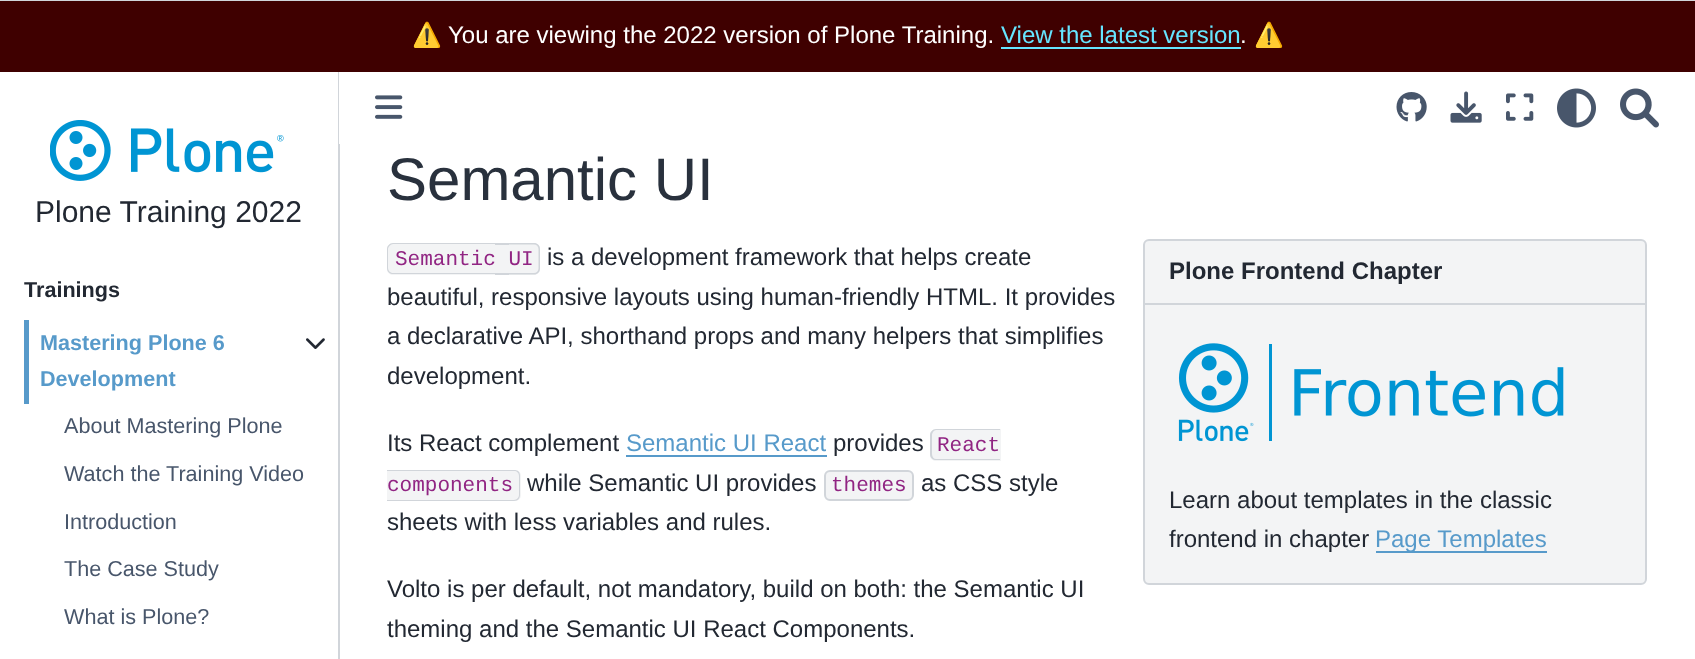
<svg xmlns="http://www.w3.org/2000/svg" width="1695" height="659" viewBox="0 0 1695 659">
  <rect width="100%" height="100%" fill="#ffffff"/>
  <rect x="0" y="0" width="1695" height="1" fill="#d1d5da"/>
  <rect x="0" y="1" width="1695" height="71" fill="#3f0000"/>
  <text x="412" y="43" font-family="Noto Color Emoji" font-size="24" fill="#ffffff">⚠️</text>
  <text x="448" y="43" font-family="Liberation Sans" font-size="24" fill="#ffffff">You are viewing the 2022 version of Plone Training.</text>
  <text x="1001" y="43" font-family="Liberation Sans" font-size="24" fill="#66e5ff">View the latest version</text>
  <rect x="1001" y="47" width="240" height="2" fill="#66e5ff"/>
  <text x="1240" y="43" font-family="Liberation Sans" font-size="24" fill="#ffffff">.</text>
  <text x="1254" y="43" font-family="Noto Color Emoji" font-size="24" fill="#ffffff">⚠️</text>
  <rect x="338" y="72" width="2" height="587" fill="#d1d5da"/>
  <image x="50" y="120" width="234" height="61" href="img1.png"/>
  <text x="35" y="222" font-family="Liberation Sans" font-size="30" fill="#222832">Plone Training 2022</text>
  <text x="24" y="297" font-family="Liberation Sans" font-size="21.6" font-weight="bold" fill="#222832">Trainings</text>
  <rect x="24" y="320" width="5" height="84" fill="#579aca"/>
  <text x="40" y="350" font-family="Liberation Sans" font-size="21.6" font-weight="bold" fill="#579aca">Mastering Plone 6</text>
  <text x="40" y="386" font-family="Liberation Sans" font-size="21.6" font-weight="bold" fill="#579aca">Development</text>
  <image x="306" y="338" width="19" height="11" href="img2.png"/>
  <text x="64" y="433" font-family="Liberation Sans" font-size="21.6" fill="#48566b">About Mastering Plone</text>
  <text x="64" y="481" font-family="Liberation Sans" font-size="21.6" fill="#48566b">Watch the Training Video</text>
  <text x="64" y="529" font-family="Liberation Sans" font-size="21.6" fill="#48566b">Introduction</text>
  <text x="64" y="576" font-family="Liberation Sans" font-size="21.6" fill="#48566b">The Case Study</text>
  <text x="64" y="624" font-family="Liberation Sans" font-size="21.6" fill="#48566b">What is Plone?</text>
  <rect x="339" y="72" width="1" height="72" fill="#ffffff"/>
  <image x="375" y="95" width="28" height="24" href="img3.png"/>
  <image x="1396" y="92" width="31" height="30" href="img4.png"/>
  <image x="1450" y="91" width="32" height="32" href="img5.png"/>
  <image x="1506" y="93" width="28" height="28" href="img6.png"/>
  <image x="1557" y="88" width="39" height="40" href="img7.png"/>
  <image x="1620" y="88" width="39" height="40" href="img8.png"/>
  <text x="387" y="200" font-family="Liberation Sans" font-size="60" fill="#29313d">Semantic UI</text>
  <path d="M393 243H495V275H393C389.5 275 387 272.5 387 269V249C387 245.5 389.5 243 393 243Z" fill="#f3f4f5"/>
  <path d="M393 243H495V274H393C390 274 387 272 387 268V249C387 246 390 243 393 243ZM393 244H495V273H393C391 273 388 271 388 268V249C388 247 391 244 393 244Z" fill="#d1d5da" fill-rule="evenodd"/>
  <rect x="495" y="245" width="14" height="28" fill="#f3f4f5"/>
  <path d="M509 243H534C537.5 243 540 245.5 540 249V269C540 272.5 537.5 275 534 275H509Z" fill="#f3f4f5"/>
  <rect x="495" y="243" width="14" height="2" fill="#d1d5da"/>
  <rect x="495" y="273" width="14" height="2" fill="#d1d5da"/>
  <path d="M508.5 243H534C537.5 243 540 245.5 540 249V268.5C540 272 537.5 274.5 534 274.5H508.5ZM508.5 244.5H534C536.5 244.5 538.5 246.5 538.5 249V268.5C538.5 271 536.5 273 534 273H508.5Z" fill="#d1d5da" fill-rule="evenodd"/>
  <text x="395" y="265" font-family="Liberation Mono" font-size="21" fill="#912583">Semantic UI</text>
  <text x="547" y="265" font-family="Liberation Sans" font-size="24" fill="#222832">is a development framework that helps create</text>
  <text x="387" y="305" font-family="Liberation Sans" font-size="24" fill="#222832">beautiful, responsive layouts using human-friendly HTML. It provides</text>
  <text x="387" y="344" font-family="Liberation Sans" font-size="24" fill="#222832">a declarative API, shorthand props and many helpers that simplifies</text>
  <text x="387" y="384" font-family="Liberation Sans" font-size="24" fill="#222832">development.</text>
  <rect x="1144" y="240" width="502" height="344" rx="5" fill="#f3f4f5" stroke="#d1d5da" stroke-width="2"/>
  <rect x="1145" y="303" width="501" height="2" fill="#d1d5da"/>
  <text x="1169" y="279" font-family="Liberation Sans" font-size="24" font-weight="bold" fill="#222832">Plone Frontend Chapter</text>
  <image x="1178" y="343" width="386" height="99" href="img9.png"/>
  <text x="1169" y="508" font-family="Liberation Sans" font-size="24" fill="#222832">Learn about templates in the classic</text>
  <text x="1169" y="547" font-family="Liberation Sans" font-size="24" fill="#222832">frontend in chapter</text>
  <rect x="1376" y="551" width="171" height="2" fill="#579aca"/>
  <text x="1375" y="547" font-family="Liberation Sans" font-size="24" fill="#579aca">Page Templates</text>
  <text x="387" y="451" font-family="Liberation Sans" font-size="24" fill="#222832">Its React complement</text>
  <text x="626" y="451" font-family="Liberation Sans" font-size="24" fill="#579aca">Semantic UI React</text>
  <rect x="626" y="455" width="201" height="2" fill="#579aca"/>
  <text x="833" y="451" font-family="Liberation Sans" font-size="24" fill="#222832">provides</text>
  <path d="M936 429H1001V461H936C932.5 461 930 458.5 930 455V435C930 431.5 932.5 429 936 429Z" fill="#f3f4f5"/>
  <path d="M936 429H1000V460H936C933 460 930 458 930 454V435C930 432 933 429 936 429ZM936 430H1000V459H936C934 459 932 457 932 454V435C932 433 934 430 936 430Z" fill="#d1d5da" fill-rule="evenodd"/>
  <text x="937" y="451" font-family="Liberation Mono" font-size="21" fill="#912583">React</text>
  <path d="M387 470H515C518.5 470 521 472.5 521 476V495C521 498.5 518.5 501 515 501H387Z" fill="#f3f4f5"/>
  <path d="M387 470H514C518 470 520 472 520 476V495C520 498 518 501 514 501H387ZM387 471H514C517 471 519 473 519 476V495C519 497 517 500 514 500H387Z" fill="#d1d5da" fill-rule="evenodd"/>
  <text x="387" y="491" font-family="Liberation Mono" font-size="21" fill="#912583">components</text>
  <text x="527" y="491" font-family="Liberation Sans" font-size="24" fill="#222832">while Semantic UI provides</text>
  <rect x="825" y="471" width="88" height="29" rx="5" fill="#f3f4f5" stroke="#d1d5da" stroke-width="2"/>
  <text x="831" y="491" font-family="Liberation Mono" font-size="21" fill="#912583">themes</text>
  <text x="921" y="491" font-family="Liberation Sans" font-size="24" fill="#222832">as CSS style</text>
  <text x="387" y="530" font-family="Liberation Sans" font-size="24" fill="#222832">sheets with less variables and rules.</text>
  <text x="387" y="597" font-family="Liberation Sans" font-size="24" fill="#222832">Volto is per default, not mandatory, build on both: the Semantic UI</text>
  <text x="387" y="637" font-family="Liberation Sans" font-size="24" fill="#222832">theming and the Semantic UI React Components.</text>
</svg>
